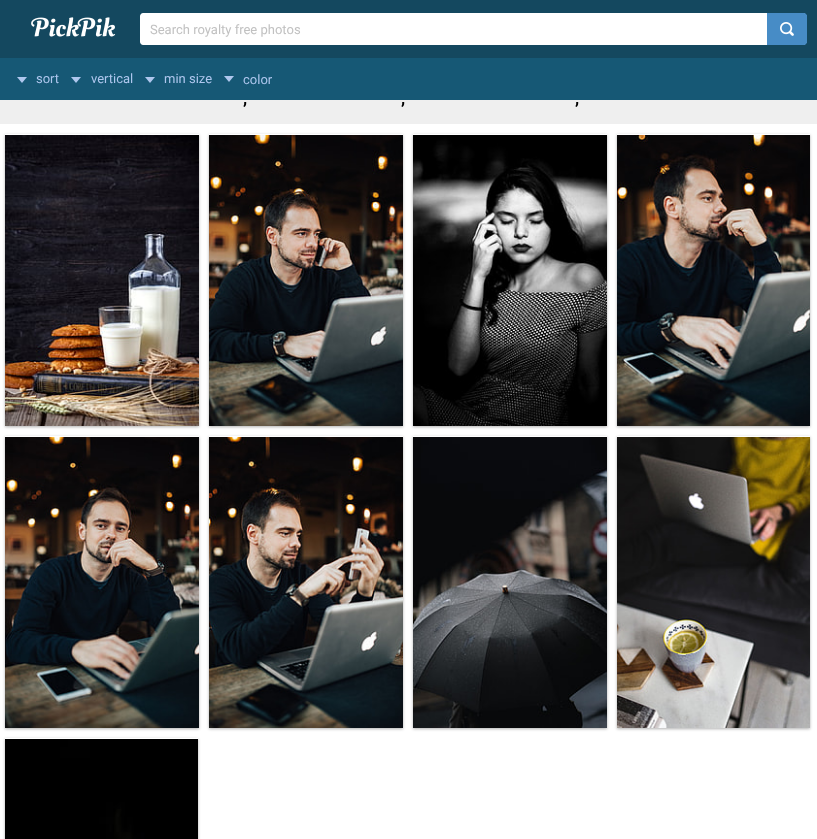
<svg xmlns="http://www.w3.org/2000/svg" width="817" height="839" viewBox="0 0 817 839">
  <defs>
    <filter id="blur1" x="-50%" y="-200%" width="200%" height="500%"><feGaussianBlur stdDeviation="1.5"/></filter>
  </defs>
  <rect width="100%" height="100%" fill="#ffffff"/>
  <rect x="0" y="0" width="817" height="58" fill="#14485f"/>
  <image x="31" y="17" width="85" height="20" href="img1.png"/>
  <path d="M143 13H802C805 13 807 15 807 18V40C807 43 805 45 802 45H143C141.5 45 140 43.5 140 42V16C140 14.5 141.5 13 143 13Z" fill="#ffffff"/>
  <text x="150" y="34" font-family="Roboto" font-size="13" fill="#c1c1c1">Search royalty free photos</text>
  <path d="M767 13H804C805.5 13 807 14.5 807 16V42C807 43.5 805.5 45 804 45H767Z" fill="#478cc6"/>
  <image x="780" y="22" width="14" height="14" href="img2.png"/>
  <rect x="0" y="58" width="817" height="42" fill="#165875"/>
  <path d="M17 77H27L22 83Z" fill="#afc7ee"/>
  <text x="36" y="83" font-family="Roboto" font-size="13" fill="#afc7ee">sort</text>
  <path d="M71 77H81L76 83Z" fill="#afc7ee"/>
  <text x="91" y="83" font-family="Roboto" font-size="13" fill="#afc7ee">vertical</text>
  <path d="M145 77H155L150 83Z" fill="#afc7ee"/>
  <text x="164" y="83" font-family="Roboto" font-size="13" fill="#afc7ee">min size</text>
  <path d="M224 76H234L229 82Z" fill="#afc7ee"/>
  <text x="243" y="84" font-family="Roboto" font-size="13" fill="#afc7ee">color</text>
  <rect x="0" y="100" width="817" height="24" fill="#efefef"/>
  <text x="243" y="104" font-family="Roboto" font-size="17" font-weight="bold" fill="#000000">,</text>
  <text x="401" y="104" font-family="Roboto" font-size="17" font-weight="bold" fill="#000000">,</text>
  <text x="575" y="104" font-family="Roboto" font-size="17" font-weight="bold" fill="#000000">,</text>
  <rect x="5" y="135" width="194" height="292" fill="#000000" fill-opacity="0.3" filter="url(#blur1)"/>
  <rect x="5" y="134" width="194" height="1" fill="#ffffff"/>
  <image x="5" y="135" width="194" height="291" href="img3.png"/>
  <rect x="209" y="135" width="194" height="292" fill="#000000" fill-opacity="0.3" filter="url(#blur1)"/>
  <rect x="209" y="134" width="194" height="1" fill="#ffffff"/>
  <image x="209" y="135" width="194" height="291" href="img4.png"/>
  <rect x="413" y="135" width="194" height="292" fill="#000000" fill-opacity="0.3" filter="url(#blur1)"/>
  <rect x="413" y="134" width="194" height="1" fill="#ffffff"/>
  <image x="413" y="135" width="194" height="291" href="img5.png"/>
  <rect x="617" y="135" width="193" height="292" fill="#000000" fill-opacity="0.3" filter="url(#blur1)"/>
  <rect x="617" y="134" width="193" height="1" fill="#ffffff"/>
  <image x="617" y="135" width="193" height="291" href="img6.png"/>
  <rect x="5" y="437" width="194" height="292" fill="#000000" fill-opacity="0.3" filter="url(#blur1)"/>
  <rect x="5" y="436" width="194" height="1" fill="#ffffff"/>
  <image x="5" y="437" width="194" height="291" href="img7.png"/>
  <rect x="209" y="437" width="194" height="292" fill="#000000" fill-opacity="0.3" filter="url(#blur1)"/>
  <rect x="209" y="436" width="194" height="1" fill="#ffffff"/>
  <image x="209" y="437" width="194" height="291" href="img8.png"/>
  <rect x="413" y="437" width="194" height="292" fill="#000000" fill-opacity="0.3" filter="url(#blur1)"/>
  <rect x="413" y="436" width="194" height="1" fill="#ffffff"/>
  <image x="413" y="437" width="194" height="291" href="img9.png"/>
  <rect x="617" y="437" width="193" height="292" fill="#000000" fill-opacity="0.3" filter="url(#blur1)"/>
  <rect x="617" y="436" width="193" height="1" fill="#ffffff"/>
  <image x="617" y="437" width="193" height="291" href="img10.png"/>
  <rect x="5" y="739" width="193" height="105" fill="#000000" fill-opacity="0.3" filter="url(#blur1)"/>
  <rect x="5" y="738" width="193" height="1" fill="#ffffff"/>
  <image x="5" y="739" width="193" height="100" href="img11.png"/>
</svg>
